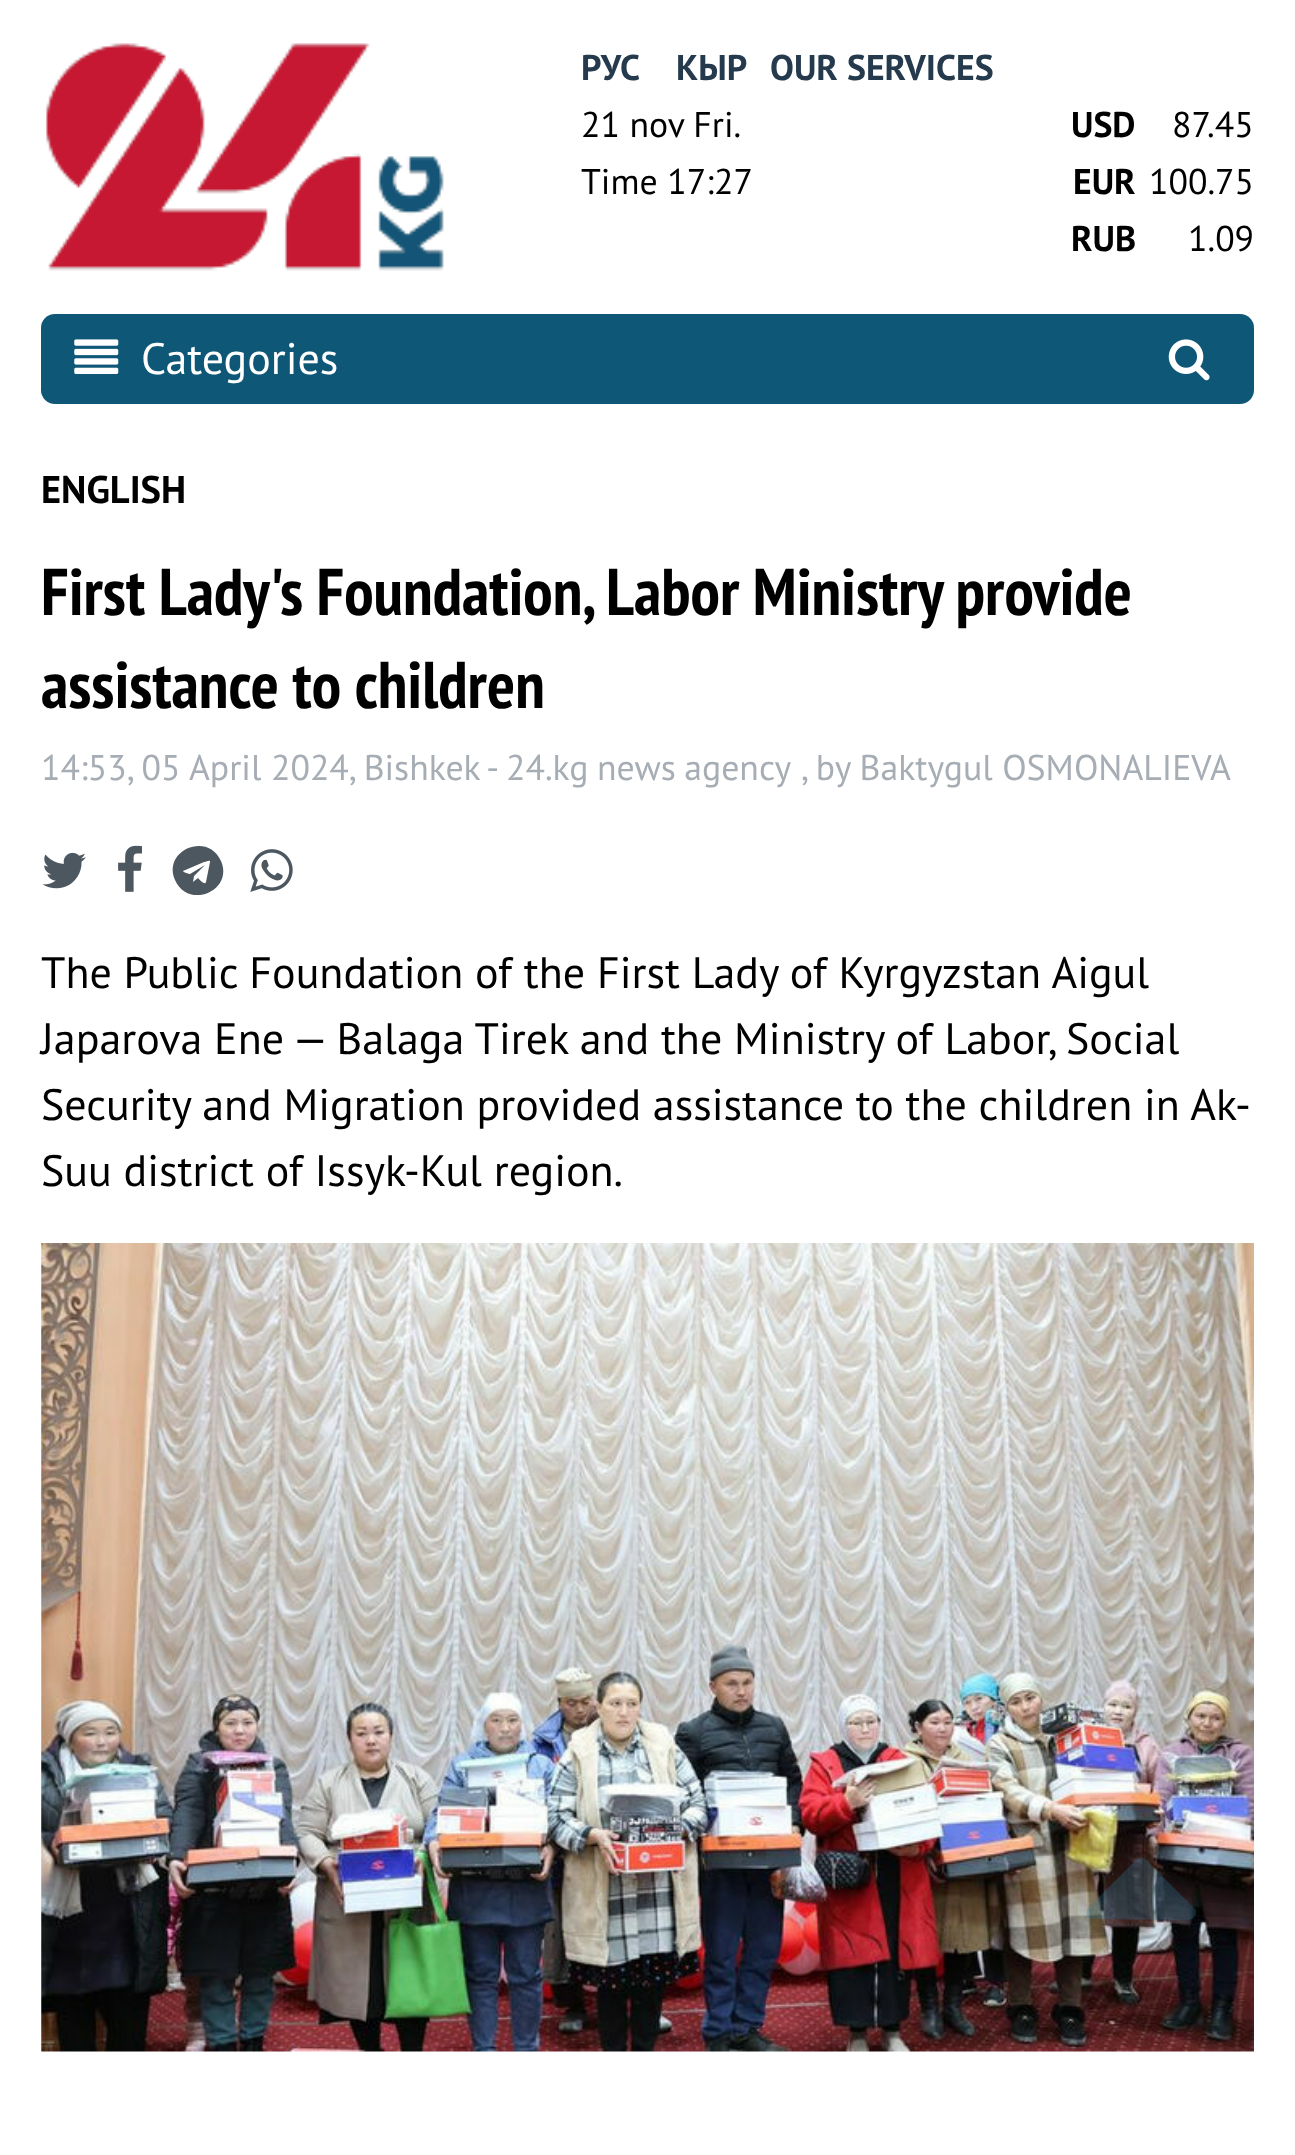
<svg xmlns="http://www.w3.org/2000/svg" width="1295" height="2155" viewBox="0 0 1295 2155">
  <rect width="100%" height="100%" fill="#ffffff"/>
  <image x="45" y="43" width="399" height="228" href="img1.png"/>
  <text x="581" y="80" font-family="PT Sans" font-size="35.75" font-weight="bold" fill="#253b4d">РУС</text>
  <text x="676" y="80" font-family="PT Sans" font-size="35.75" font-weight="bold" fill="#253b4d">КЫР</text>
  <text x="770" y="80" font-family="PT Sans" font-size="35.75" font-weight="bold" fill="#253b4d">OUR SERVICES</text>
  <text x="581" y="137" font-family="PT Sans" font-size="35.75" fill="#000000">21 nov Fri.</text>
  <text x="581" y="194" font-family="PT Sans" font-size="35.75" fill="#000000">Time 17:27</text>
  <text x="1071" y="137" font-family="PT Sans" font-size="35.75" font-weight="bold" fill="#000000">USD</text>
  <text x="1172" y="137" font-family="PT Sans" font-size="35.75" fill="#000000">87.45</text>
  <text x="1073" y="194" font-family="PT Sans" font-size="35.75" font-weight="bold" fill="#000000">EUR</text>
  <text x="1149" y="194" font-family="PT Sans" font-size="35.75" fill="#000000">100.75</text>
  <text x="1071" y="251" font-family="PT Sans" font-size="35.75" font-weight="bold" fill="#000000">RUB</text>
  <text x="1188" y="251" font-family="PT Sans" font-size="35.75" fill="#000000">1.09</text>
  <rect x="41" y="314" width="1213" height="90" rx="14" fill="#0e5777"/>
  <image x="74" y="339" width="45" height="35" href="img2.png"/>
  <text x="141" y="374" font-family="PT Sans" font-size="44" fill="#ffffff">Categories</text>
  <image x="1168" y="339" width="42" height="42" href="img3.png"/>
  <text x="41" y="503" font-family="PT Sans" font-size="38.5" font-weight="bold" fill="#000000">ENGLISH</text>
  <text x="41" y="615" font-family="PT Sans Narrow" font-size="66" font-weight="bold" fill="#000000">First Lady's Foundation, Labor Ministry provide</text>
  <text x="41" y="708" font-family="PT Sans Narrow" font-size="66" font-weight="bold" fill="#000000">assistance to children</text>
  <text x="41" y="780" font-family="PT Sans" font-size="35.75" fill="#a7adb4">14:53, 05 April 2024, Bishkek -</text>
  <text x="506" y="780" word-spacing="-1" font-family="PT Sans" font-size="35.75" fill="#a7adb4">24.kg news agency</text>
  <text x="801" y="780" font-family="PT Sans" font-size="35.75" fill="#a7adb4">, by Baktygul OSMONALIEVA</text>
  <image x="42" y="852" width="44" height="37" href="img4.png"/>
  <image x="118" y="845" width="24" height="47" href="img5.png"/>
  <path d="M206 882L210 862C211 859 205 862 204 862L183 871C183 872 189 874 190 874L205 865C205 865 206 865 205 865L194 876L193 882L198 878C199 879 205 886 206 882ZM221 861C234 891 188 910 175 880C162 850 208 831 221 861Z" fill="#4d5760"/>
  <image x="250" y="849" width="43" height="43" href="img6.png"/>
  <text x="41" y="988" font-family="PT Sans" font-size="44" fill="#000000">The Public Foundation of the First Lady of Kyrgyzstan Aigul</text>
  <text x="41" y="1054" font-family="PT Sans" font-size="44" fill="#000000">Japarova Ene — Balaga Tirek and the Ministry of Labor, Social</text>
  <text x="41" y="1120" font-family="PT Sans" font-size="44" fill="#000000">Security and Migration provided assistance to the children in Ak-</text>
  <text x="41" y="1186" font-family="PT Sans" font-size="44" fill="#000000">Suu district of Issyk-Kul region.</text>
  <image x="41" y="1243" width="1213" height="809" href="img7.png"/>
  <path d="M1194 1908L1196 1910C1196 1912 1196 1914 1196 1915C1192 1923 1177 1920 1173 1920L1092 1919C1086 1918 1085 1912 1088 1908L1128 1868C1142 1854 1141 1854 1154 1868Z" fill="#2c7694" fill-opacity="0.3"/>
</svg>
